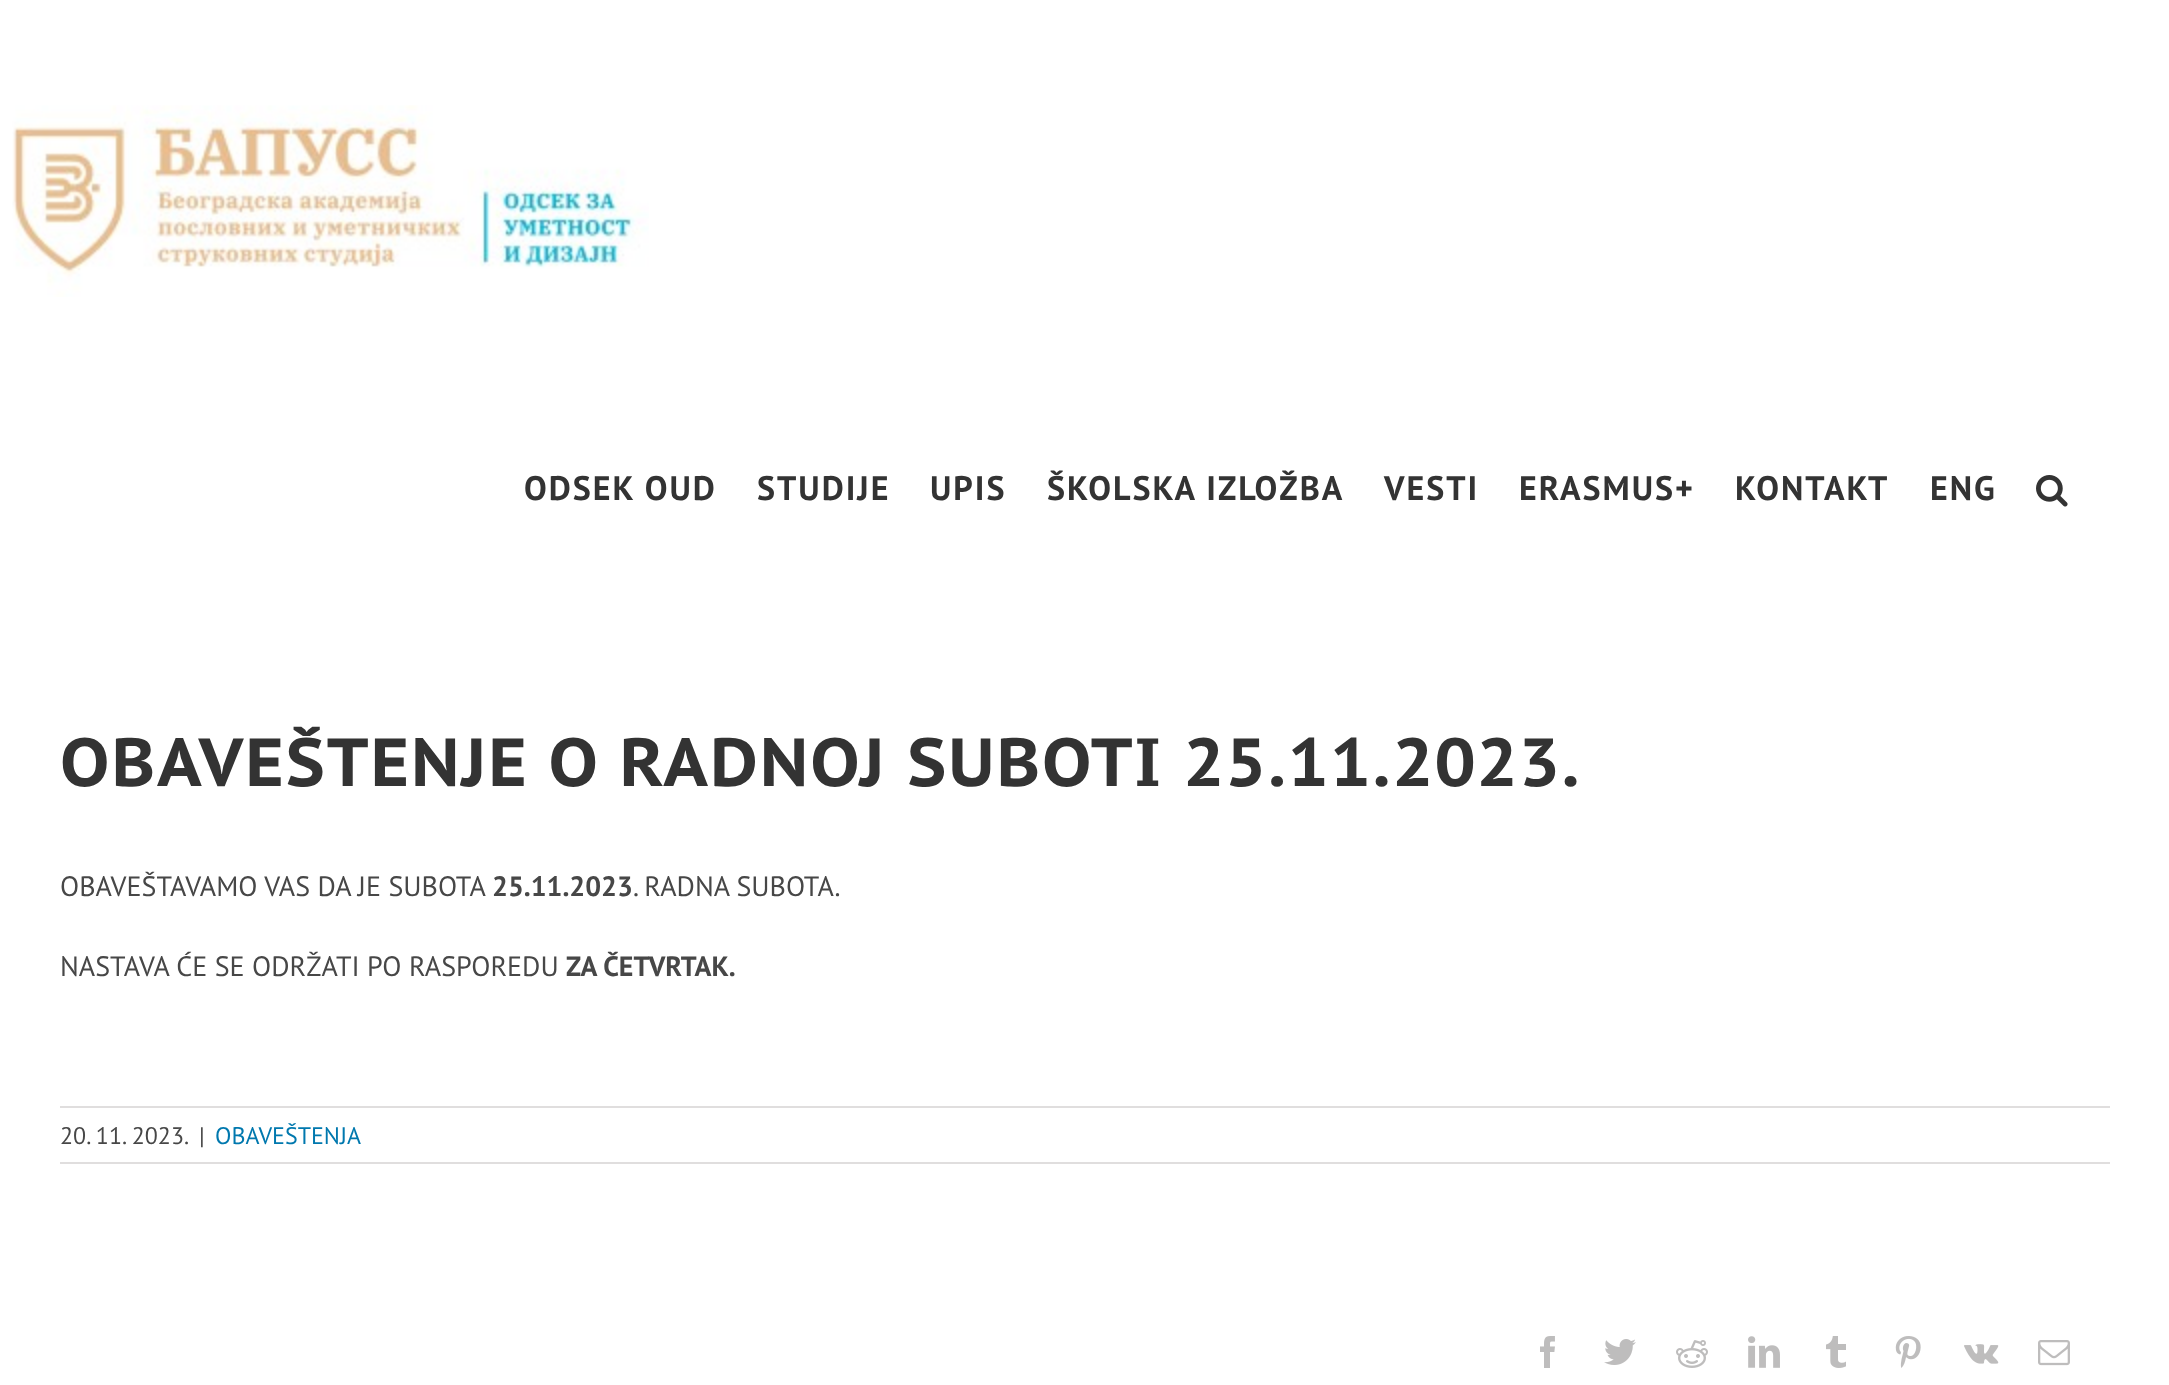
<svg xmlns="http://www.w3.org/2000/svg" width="2169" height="1385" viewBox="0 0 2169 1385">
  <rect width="100%" height="100%" fill="#ffffff"/>
  <image x="12" y="105" width="637" height="192" href="img1.png"/>
  <text x="524" y="500" font-family="PT Sans" font-size="34" font-weight="bold" letter-spacing="2" fill="#333333">ODSEK OUD</text>
  <text x="757" y="500" font-family="PT Sans" font-size="34" font-weight="bold" letter-spacing="2" fill="#333333">STUDIJE</text>
  <text x="930" y="500" font-family="PT Sans" font-size="34" font-weight="bold" letter-spacing="2" fill="#333333">UPIS</text>
  <text x="1047" y="500" font-family="PT Sans" font-size="34" font-weight="bold" letter-spacing="2" fill="#333333">ŠKOLSKA IZLOŽBA</text>
  <text x="1384" y="500" font-family="PT Sans" font-size="34" font-weight="bold" letter-spacing="2" fill="#333333">VESTI</text>
  <text x="1519" y="500" font-family="PT Sans" font-size="34" font-weight="bold" letter-spacing="2" fill="#333333">ERASMUS+</text>
  <text x="1735" y="500" font-family="PT Sans" font-size="34" font-weight="bold" letter-spacing="2" fill="#333333">KONTAKT</text>
  <text x="1930" y="500" font-family="PT Sans" font-size="34" font-weight="bold" letter-spacing="2" fill="#333333">ENG</text>
  <image x="2036" y="475" width="32" height="32" href="img2.png"/>
  <text x="60" y="786" font-family="PT Sans Caption" font-size="68" font-weight="bold" letter-spacing="2" fill="#333333">OBAVEŠTENJE O RADNOJ SUBOTI 25.11.2023.</text>
  <text x="60" y="896" font-family="PT Sans" font-size="28" fill="#474747">OBAVEŠTAVAMO VAS DA JE SUBOTA</text>
  <text x="492" y="896" font-family="PT Sans" font-size="28" font-weight="bold" fill="#474747">25.11.2023</text>
  <text x="633" y="896" font-family="PT Sans" font-size="28" fill="#474747">. RADNA SUBOTA.</text>
  <text x="60" y="976" font-family="PT Sans" font-size="28" fill="#474747">NASTAVA ĆE SE ODRŽATI PO RASPOREDU</text>
  <text x="566" y="976" font-family="PT Sans" font-size="28" font-weight="bold" fill="#474747">ZA ČETVRTAK.</text>
  <rect x="60" y="1106" width="2050" height="2" fill="#e0dede"/>
  <rect x="60" y="1162" width="2050" height="2" fill="#e0dede"/>
  <text x="60" y="1144" font-family="PT Sans" font-size="24" fill="#474747">20. 11. 2023.</text>
  <text x="199" y="1144" font-family="PT Sans" font-size="24" fill="#474747">|</text>
  <text x="215" y="1144" font-family="PT Sans" font-size="24" fill="#0078ae">OBAVEŠTENJA</text>
  <image x="1540" y="1336" width="15" height="32" href="img3.png"/>
  <image x="1604" y="1339" width="32" height="26" href="img4.png"/>
  <image x="1676" y="1340" width="32" height="28" href="img5.png"/>
  <image x="1748" y="1336" width="32" height="32" href="img6.png"/>
  <image x="1826" y="1336" width="20" height="32" href="img7.png"/>
  <image x="1895" y="1336" width="26" height="32" href="img8.png"/>
  <image x="1964" y="1344" width="35" height="20" href="img9.png"/>
  <image x="2038" y="1340" width="32" height="26" href="img10.png"/>
</svg>
